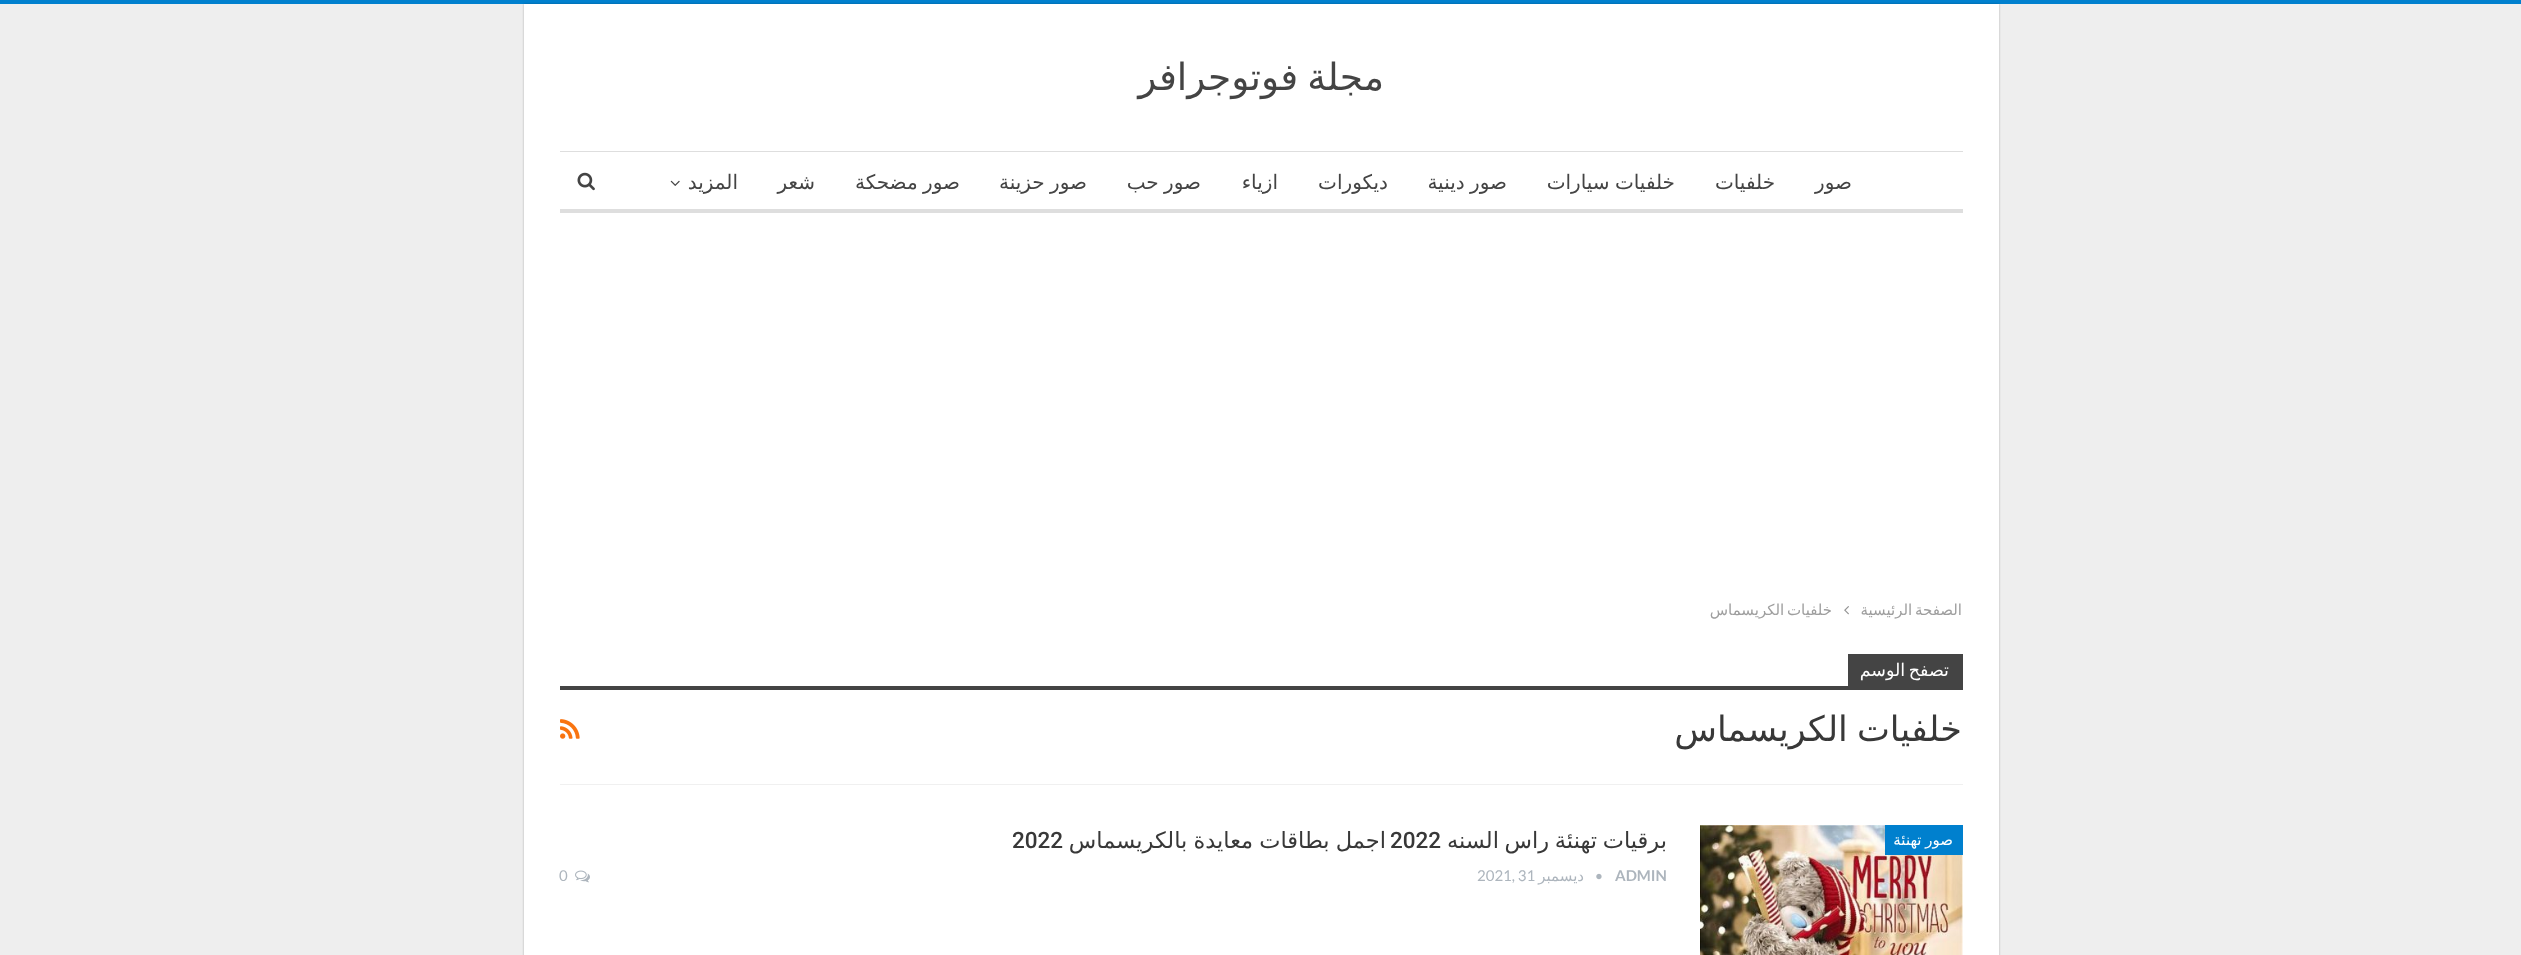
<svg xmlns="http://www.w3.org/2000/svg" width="2521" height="955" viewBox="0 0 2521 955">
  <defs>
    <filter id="blur1" x="-50%" y="-200%" width="200%" height="500%"><feGaussianBlur stdDeviation="1"/></filter>
  </defs>
  <rect width="100%" height="100%" fill="#eeeeee"/>
  <rect x="0" y="0" width="2521" height="4" fill="#0080ce"/>
  <rect x="524" y="4" width="1475" height="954" fill="#000000" fill-opacity="0.27" filter="url(#blur1)"/>
  <rect x="524" y="4" width="1475" height="951" fill="#ffffff"/>
  <text x="1384" y="90" word-spacing="-3" font-family="DejaVu Sans" font-size="37.5" direction="rtl" fill="#444444">مجلة فوتوجرافر</text>
  <rect x="560" y="151" width="1403" height="1" fill="#dedede"/>
  <rect x="560" y="209" width="1403" height="4" fill="#dedede"/>
  <text x="1852" y="189" font-family="DejaVu Sans" font-size="20" direction="rtl" fill="#444444">صور</text>
  <text x="1775" y="189" font-family="DejaVu Sans" font-size="20" direction="rtl" fill="#444444">خلفيات</text>
  <text x="1675" y="189" word-spacing="-1" font-family="DejaVu Sans" font-size="20" direction="rtl" fill="#444444">خلفيات سيارات</text>
  <text x="1507" y="189" word-spacing="-1" font-family="DejaVu Sans" font-size="20" direction="rtl" fill="#444444">صور دينية</text>
  <text x="1388" y="189" font-family="DejaVu Sans" font-size="20" direction="rtl" fill="#444444">ديكورات</text>
  <text x="1278" y="189" font-family="DejaVu Sans" font-size="20" direction="rtl" fill="#444444">ازياء</text>
  <text x="1201" y="189" word-spacing="-1" font-family="DejaVu Sans" font-size="20" direction="rtl" fill="#444444">صور حب</text>
  <text x="1087" y="189" word-spacing="-1" font-family="DejaVu Sans" font-size="20" direction="rtl" fill="#444444">صور حزينة</text>
  <text x="960" y="189" word-spacing="-1" font-family="DejaVu Sans" font-size="20" direction="rtl" fill="#444444">صور مضحكة</text>
  <text x="815" y="189" font-family="DejaVu Sans" font-size="20" direction="rtl" fill="#444444">شعر</text>
  <text x="738" y="189" font-family="DejaVu Sans" font-size="20" direction="rtl" fill="#444444">المزيد</text>
  <image x="670" y="180" width="10" height="6" href="img1.png"/>
  <image x="577" y="172" width="18" height="19" href="img2.png"/>
  <text x="1962" y="615" word-spacing="-2" font-family="DejaVu Sans" font-size="15" direction="rtl" fill="#9e9e9e">الصفحة الرئيسية</text>
  <image x="1844" y="606" width="5" height="9" href="img3.png"/>
  <text x="1832" y="615" word-spacing="-2" font-family="DejaVu Sans" font-size="15" direction="rtl" fill="#9e9e9e">خلفيات الكريسماس</text>
  <rect x="560" y="784" width="1403" height="1" fill="#f0f0f0"/>
  <rect x="1848" y="654" width="115" height="32" fill="#444444"/>
  <text x="1949" y="676" word-spacing="-2" font-family="DejaVu Sans" font-size="17.5" direction="rtl" fill="#ffffff">تصفح الوسم</text>
  <rect x="560" y="686" width="1403" height="4" fill="#444444"/>
  <text x="1962" y="741" word-spacing="-2" font-family="DejaVu Sans" font-size="35" direction="rtl" fill="#383838">خلفيات الكريسماس</text>
  <image x="560" y="719" width="20" height="20" href="img4.png"/>
  <image x="1700" y="825" width="263" height="130" href="img5.png"/>
  <rect x="1885" y="825" width="78" height="30" fill="#0080ce"/>
  <text x="1953" y="845" word-spacing="-1" font-family="DejaVu Sans" font-size="15" direction="rtl" fill="#ffffff">صور تهنئة</text>
  <text x="1667" y="848" word-spacing="-1.5" font-family="DejaVu Sans" font-size="22.5" direction="rtl" fill="#383838">برقيات تهنئة راس السنه</text>
  <text x="1390" y="848" font-family="Roboto" font-size="22.5" font-weight="500" fill="#383838">2022</text>
  <text x="1386" y="848" word-spacing="-1" font-family="DejaVu Sans" font-size="22.5" direction="rtl" fill="#383838">اجمل بطاقات معايدة بالكريسماس</text>
  <text x="1012" y="848" font-family="Roboto" font-size="22.5" font-weight="500" fill="#383838">2022</text>
  <text x="1615" y="881" font-family="Lato" font-size="15" font-weight="bold" fill="#adb5bd">ADMIN</text>
  <image x="1596" y="873" width="6" height="7" href="img6.png"/>
  <text x="1584" y="881" font-family="DejaVu Sans" font-size="15" direction="rtl" fill="#adb5bd">ديسمبر</text>
  <text x="1477" y="881" font-family="Lato" font-size="15" fill="#adb5bd">2021, 31</text>
  <image x="575" y="870" width="15" height="13" href="img7.png"/>
  <text x="559" y="881" font-family="Lato" font-size="15" fill="#adb5bd">0</text>
</svg>
